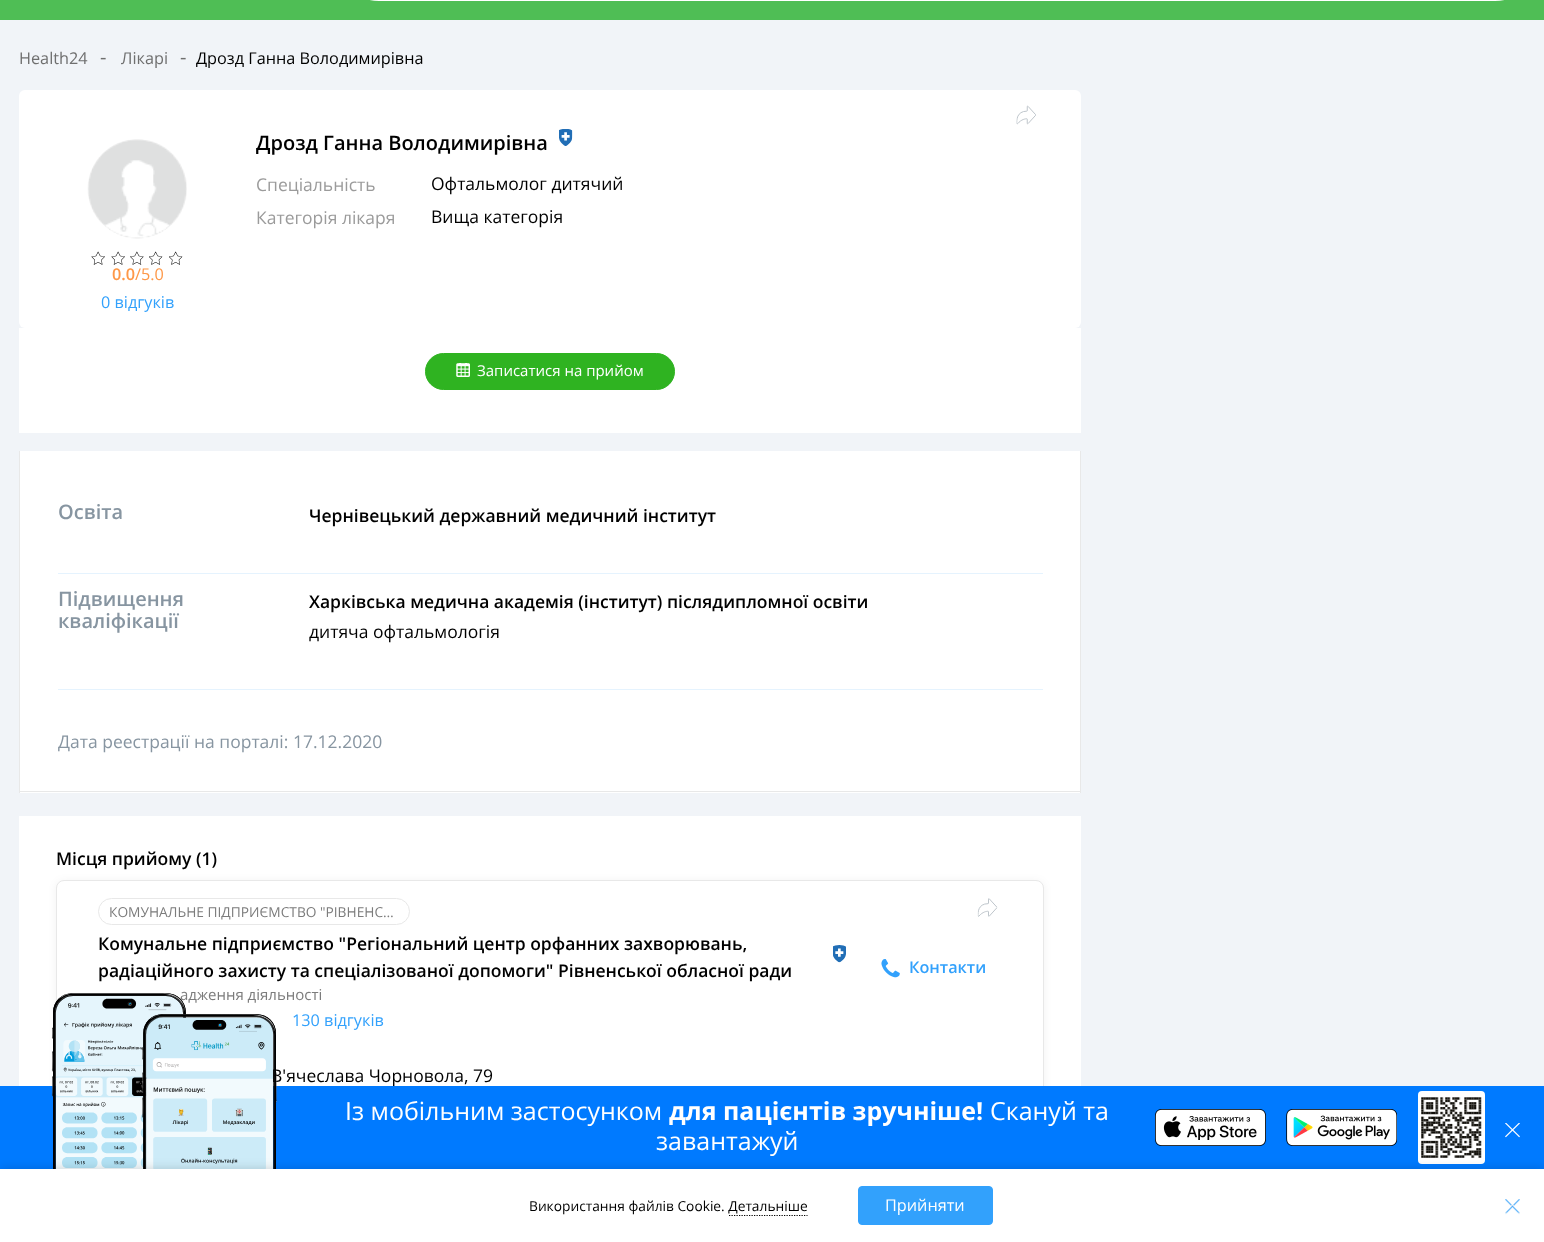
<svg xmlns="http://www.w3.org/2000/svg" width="1544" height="1242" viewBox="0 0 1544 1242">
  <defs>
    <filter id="blur1" x="-50%" y="-200%" width="200%" height="500%"><feGaussianBlur stdDeviation="4"/></filter>
    <filter id="blur2" x="-50%" y="-200%" width="200%" height="500%"><feGaussianBlur stdDeviation="6"/></filter>
  </defs>
  <rect width="100%" height="100%" fill="#f1f4f8"/>
  <rect x="0" y="0" width="1544" height="20" fill="#4fbe55"/>
  <rect x="354" y="-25" width="1166" height="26" rx="25" fill="#ffffff"/>
  <text x="19" y="64" font-family="Open Sans" font-size="16.25" fill="#6f6f6f">Health24</text>
  <text x="100" y="64" font-family="Open Sans" font-size="20" fill="#6f6f6f">-</text>
  <text x="121" y="64" font-family="Open Sans" font-size="16.25" fill="#6f6f6f">Лікарі</text>
  <text x="180" y="64" font-family="Open Sans" font-size="20" fill="#6f6f6f">-</text>
  <text x="196" y="64" font-family="Open Sans" font-size="16.25" fill="#000000">Дрозд Ганна Володимирівна</text>
  <rect x="19" y="90" width="1062" height="238" rx="6" fill="#ffffff"/>
  <image x="1016" y="105" width="20" height="20" href="img1.png"/>
  <text x="256" y="150" font-family="Open Sans" font-size="20" font-weight="600" fill="#000000">Дрозд Ганна Володимирівна</text>
  <image x="559" y="129" width="14" height="17" href="img2.png"/>
  <text x="256" y="191" font-family="Open Sans" font-size="17.5" fill="#9b9b9b">Спеціальність</text>
  <text x="431" y="190" font-family="Open Sans" font-size="17.5" fill="#000000">Офтальмолог дитячий</text>
  <text x="256" y="224" font-family="Open Sans" font-size="17.5" fill="#9b9b9b">Категорія лікаря</text>
  <text x="431" y="223" font-family="Open Sans" font-size="17.5" fill="#000000">Вища категорія</text>
  <image x="87" y="139" width="100" height="100" href="img3.png"/>
  <image x="91" y="251" width="14" height="14" href="img4.png"/>
  <image x="111" y="251" width="14" height="14" href="img4.png"/>
  <image x="130" y="251" width="14" height="14" href="img5.png"/>
  <image x="149" y="251" width="14" height="14" href="img6.png"/>
  <image x="169" y="251" width="14" height="14" href="img6.png"/>
  <text x="112" y="280" font-family="Open Sans" font-size="16.25" font-weight="600" fill="#fe9848">0.0</text>
  <text x="135" y="280" font-family="Open Sans" font-size="16.25" fill="#fe9848">/5.0</text>
  <text x="101" y="308" font-family="Open Sans" font-size="16.25" fill="#32a1fc">0 відгуків</text>
  <rect x="19" y="328" width="1062" height="105" fill="#ffffff"/>
  <rect x="425.5" y="353.5" width="249" height="36" rx="18" fill="#2fb321" stroke="#2fb321"/>
  <image x="456" y="363" width="14" height="14" href="img7.png"/>
  <text x="477" y="376" font-family="Open Sans" font-size="15" fill="#ffffff">Записатися на прийом</text>
  <rect x="20" y="451" width="1060" height="342" fill="#ffffff"/>
  <rect x="1080" y="451" width="1" height="342" fill="#e8e8e8"/>
  <rect x="19" y="791" width="1062" height="1" fill="#e8e8e8"/>
  <rect x="19" y="451" width="1" height="342" fill="#e8e8e8"/>
  <rect x="58" y="573" width="985" height="1" fill="#e5f3fe"/>
  <text x="58" y="519" font-family="Open Sans" font-size="20" font-weight="600" fill="#8795a1">Освіта</text>
  <text x="309" y="522" font-family="Open Sans" font-size="17.5" font-weight="600" fill="#000000">Чернівецький державний медичний інститут</text>
  <rect x="58" y="689" width="985" height="1" fill="#e5f3fe"/>
  <text x="58" y="606" font-family="Open Sans" font-size="20" font-weight="600" fill="#8795a1">Підвищення</text>
  <text x="58" y="628" font-family="Open Sans" font-size="20" font-weight="600" fill="#8795a1">кваліфікації</text>
  <text x="309" y="608" font-family="Open Sans" font-size="17.5" font-weight="600" fill="#000000">Харківська медична академія (інститут) післядипломної освіти</text>
  <text x="309" y="638" font-family="Open Sans" font-size="17.5" fill="#000000">дитяча офтальмологія</text>
  <text x="58" y="748" font-family="Open Sans" font-size="17.5" fill="#8795a1">Дата реестрації на порталі: 17.12.2020</text>
  <rect x="19" y="816" width="1062" height="270" fill="#ffffff"/>
  <text x="56" y="865" font-family="Open Sans" font-size="17.5" font-weight="600" fill="#000000">Місця прийому (1)</text>
  <rect x="56" y="881" width="988" height="334" rx="8" fill="#000000" fill-opacity="0.05" filter="url(#blur1)"/>
  <rect x="56.5" y="880.5" width="987" height="333" rx="7.5" fill="#ffffff" stroke="#e8e8e8"/>
  <rect x="98.5" y="898.5" width="311" height="26" rx="13" fill="none" stroke="#e8e8e8"/>
  <text x="109" y="917" font-family="Open Sans" font-size="13.75" fill="#7c7c7c">КОМУНАЛЬНЕ ПІДПРИЄМСТВО "РІВНЕНС…</text>
  <text x="98" y="950" font-family="Open Sans" font-size="17.5" font-weight="600" fill="#000000">Комунальне підприємство "Регіональний центр орфанних захворювань,</text>
  <text x="98" y="977" font-family="Open Sans" font-size="17.5" font-weight="600" fill="#000000">радіаційного захисту та спеціалізованої допомоги" Рівненської обласної ради</text>
  <image x="833" y="945" width="13" height="18" href="img8.png"/>
  <text x="180" y="1000" font-family="Open Sans" font-size="15" fill="#7c7c7c">адження діяльності</text>
  <image x="182" y="1014" width="4" height="4" href="img9.png"/>
  <text x="292" y="1026" font-family="Open Sans" font-size="16.25" fill="#32a1fc">130 відгуків</text>
  <image x="881" y="959" width="19" height="19" href="img10.png"/>
  <text x="909" y="973" font-family="Open Sans" font-size="16.25" font-weight="600" fill="#32a1fc">Контакти</text>
  <text x="271" y="1082" font-family="Open Sans" font-size="17.5" fill="#000000">В'ячеслава Чорновола, 79</text>
  <image x="977" y="898" width="21" height="19" href="img11.png"/>
  <rect x="0" y="1086" width="1544" height="83" fill="#007aff"/>
  <image x="51" y="993" width="226" height="176" href="img12.png"/>
  <text x="345" y="1120" font-family="Open Sans" font-size="25" fill="#ffffff">Із мобільним застосунком</text>
  <text x="669" y="1120" font-family="Open Sans" font-size="25" font-weight="bold" fill="#ffffff">для пацієнтів зручніше!</text>
  <text x="990" y="1120" font-family="Open Sans" font-size="25" fill="#ffffff">Скануй та</text>
  <text x="656" y="1150" font-family="Open Sans" font-size="25" fill="#ffffff">завантажуй</text>
  <image x="1155" y="1109" width="111" height="37" href="img13.png"/>
  <image x="1286" y="1109" width="111" height="37" href="img14.png"/>
  <rect x="1418" y="1091" width="67" height="73" rx="4" fill="#ffffff"/>
  <image x="1421" y="1097" width="61" height="61" href="img15.png"/>
  <image x="1505" y="1123" width="15" height="15" href="img16.png"/>
  <rect x="0" y="1170" width="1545" height="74" fill="#000000" fill-opacity="0.2" filter="url(#blur2)"/>
  <rect x="0" y="1169" width="1544" height="73" fill="#ffffff"/>
  <text x="529" y="1211" font-family="Open Sans" font-size="13.75" fill="#000000">Використання файлів Сookie. Детальніше</text>
  <path d="M729 1215.5H807.5" fill="none" stroke="#000000" stroke-width="1.2" stroke-dasharray="1.25 1.25"/>
  <rect x="858.5" y="1186.5" width="134" height="38" rx="3.5" fill="#32a1fc" stroke="#32a1fc"/>
  <text x="885" y="1211" font-family="Open Sans" font-size="16.25" fill="#ffffff">Прийняти</text>
  <image x="1505" y="1199" width="15" height="16" href="img17.png"/>
</svg>
